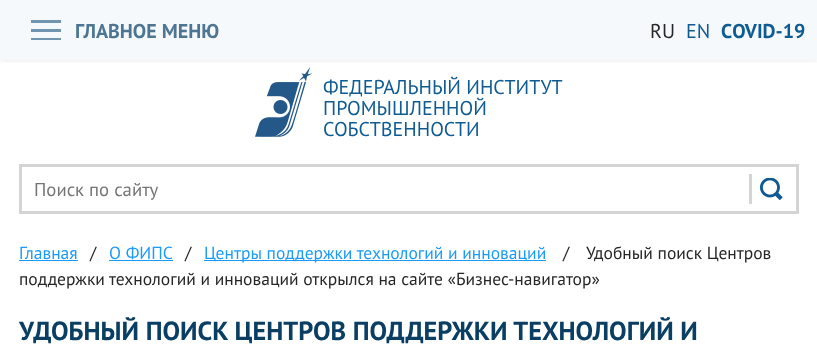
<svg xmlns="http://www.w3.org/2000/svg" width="817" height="357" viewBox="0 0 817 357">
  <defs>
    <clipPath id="clip1"><rect x="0" y="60" width="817" height="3"/></clipPath>
    <filter id="blur1" x="-50%" y="-200%" width="200%" height="500%"><feGaussianBlur stdDeviation="3"/></filter>
  </defs>
  <rect width="100%" height="100%" fill="#ffffff"/>
  <rect x="0" y="0" width="817" height="60" fill="#f5f9fc"/>
  <image x="255" y="67" width="58" height="70" href="img1.png"/>
  <g clip-path="url(#clip1)">
    <rect x="0" y="0" width="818" height="60" fill="#4d4d4d" fill-opacity="0.14" filter="url(#blur1)"/>
  </g>
  <rect x="31" y="38" width="30" height="2" fill="#7195b0"/>
  <rect x="31" y="29" width="30" height="3" fill="#7195b0"/>
  <rect x="31" y="20" width="30" height="3" fill="#7195b0"/>
  <text x="75" y="38" font-family="PT Sans" font-size="20" font-weight="bold" fill="#4e7692">ГЛАВНОЕ МЕНЮ</text>
  <text x="650" y="38" font-family="PT Sans" font-size="20" fill="#262626">RU</text>
  <text x="686" y="38" font-family="PT Sans" font-size="20" fill="#0f5b92">EN</text>
  <text x="721" y="38" font-family="PT Sans" font-size="20" font-weight="bold" fill="#0f5b92">СOVID-19</text>
  <text x="323" y="94" font-family="PT Sans" font-size="20" fill="#0f5b92">ФЕДЕРАЛЬНЫЙ ИНСТИТУТ</text>
  <text x="323" y="115" font-family="PT Sans" font-size="20" fill="#0f5b92">ПРОМЫШЛЕННОЙ</text>
  <text x="323" y="136" font-family="PT Sans" font-size="20" fill="#0f5b92">СОБСТВЕННОСТИ</text>
  <rect x="20.5" y="165.5" width="777" height="47" fill="none" stroke="#d4d4d4" stroke-width="3"/>
  <text x="34" y="196" font-family="PT Sans" font-size="18.75" fill="#757575">Поиск по сайту</text>
  <image x="760" y="178" width="23" height="22" href="img2.png"/>
  <rect x="749" y="174" width="3" height="30" fill="#d4d4d4"/>
  <text x="19" y="259" font-family="PT Sans" font-size="17.5" fill="#1a9bf9">Главная</text>
  <rect x="19" y="260" width="59" height="1" fill="#1a9bf9"/>
  <text x="90" y="259" font-family="PT Sans" font-size="17.5" fill="#262626">/</text>
  <text x="109" y="259" font-family="PT Sans" font-size="17.5" fill="#1a9bf9">О ФИПС</text>
  <rect x="109" y="260" width="64" height="1" fill="#1a9bf9"/>
  <text x="185" y="259" font-family="PT Sans" font-size="17.5" fill="#262626">/</text>
  <rect x="204" y="260" width="342" height="1" fill="#1a9bf9"/>
  <text x="204" y="259" font-family="PT Sans" font-size="17.5" fill="#1a9bf9">Центры поддержки технологий и инноваций</text>
  <text x="563" y="259" font-family="PT Sans" font-size="17.5" fill="#262626">/</text>
  <text x="586" y="259" font-family="PT Sans" font-size="17.5" fill="#262626">Удобный поиск Центров</text>
  <text x="19" y="285" font-family="PT Sans" font-size="17.5" fill="#262626">поддержки технологий и инноваций открылся на сайте «Бизнес-навигатор»</text>
  <text x="19" y="340" font-family="PT Sans" font-size="26.25" font-weight="bold" fill="#0a3e63">УДОБНЫЙ ПОИСК ЦЕНТРОВ ПОДДЕРЖКИ ТЕХНОЛОГИЙ И</text>
</svg>
